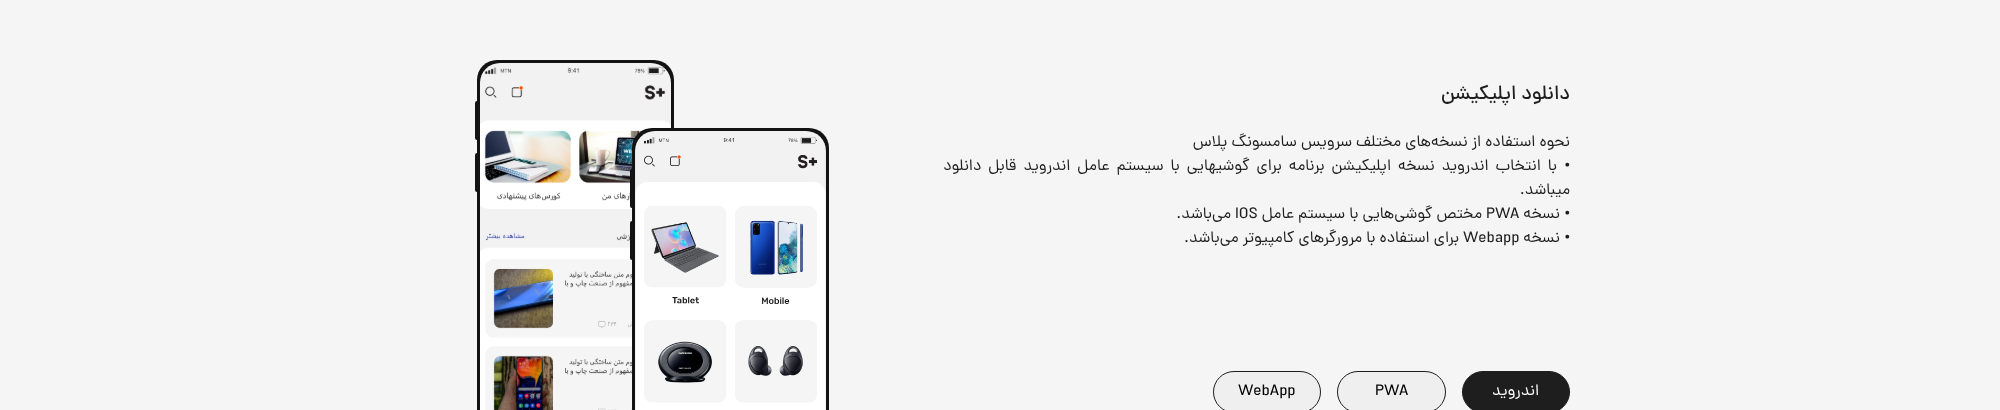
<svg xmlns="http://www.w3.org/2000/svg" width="2000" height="410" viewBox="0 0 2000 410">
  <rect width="100%" height="100%" fill="#f5f5f5"/>
  <text x="1570" y="99" font-family="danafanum" font-size="20" font-weight="500" direction="rtl" fill="#1e1e1e">دانلود اپلیکیشن</text>
  <text x="1570" y="146" font-family="danafanum" font-size="16" direction="rtl" fill="#1e1e1e">نحوه استفاده از نسخه‌های مختلف سرویس سامسونگ پلاس</text>
  <text x="1570" y="170" font-family="Liberation Serif" font-size="16" direction="rtl" fill="#1e1e1e">•</text>
  <text x="1557" y="170" word-spacing="2.9" font-family="danafanum" font-size="16" direction="rtl" fill="#1e1e1e">با انتخاب اندروید نسخه اپلیکیشن برنامه برای گوشیهایی با سیستم عامل اندروید قابل دانلود</text>
  <text x="1570" y="194" font-family="danafanum" font-size="16" direction="rtl" fill="#1e1e1e">میباشد.</text>
  <text x="1570" y="218" font-family="Liberation Serif" font-size="16" direction="rtl" fill="#1e1e1e">•</text>
  <text x="1560" y="218" font-family="danafanum" font-size="16" direction="rtl" fill="#1e1e1e">نسخه</text>
  <text x="1486" y="218" font-family="danafanum" font-size="16" fill="#1e1e1e">PWA</text>
  <text x="1482" y="218" font-family="danafanum" font-size="16" direction="rtl" fill="#1e1e1e">مختص گوشی‌هایی با سیستم عامل</text>
  <text x="1235" y="218" font-family="danafanum" font-size="16" fill="#1e1e1e">IOS</text>
  <text x="1231" y="218" font-family="danafanum" font-size="16" direction="rtl" fill="#1e1e1e">می‌باشد.</text>
  <text x="1570" y="242" font-family="Liberation Serif" font-size="16" direction="rtl" fill="#1e1e1e">•</text>
  <text x="1560" y="242" font-family="danafanum" font-size="16" direction="rtl" fill="#1e1e1e">نسخه</text>
  <text x="1463" y="242" font-family="danafanum" font-size="16" fill="#1e1e1e">Webapp</text>
  <text x="1459" y="242" font-family="danafanum" font-size="16" direction="rtl" fill="#1e1e1e">برای استفاده با مرورگرهای کامپیوتر می‌باشد.</text>
  <rect x="1462.5" y="371.5" width="107" height="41" rx="20.5" fill="#1e1e1e" stroke="#1e1e1e"/>
  <text x="1539" y="395" font-family="danafanum" font-size="16" direction="rtl" fill="#ffffff">اندروید</text>
  <rect x="1337.5" y="371.5" width="108" height="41" rx="20.5" fill="#efefef" stroke="#1e1e1e"/>
  <text x="1375" y="395" font-family="danafanum" font-size="16" fill="#000000">PWA</text>
  <rect x="1213.5" y="371.5" width="107" height="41" rx="20.5" fill="#efefef" stroke="#1e1e1e"/>
  <text x="1238" y="395" font-family="danafanum" font-size="16" fill="#000000">WebApp</text>
  <image x="475" y="60" width="354" height="350" href="img1.png"/>
</svg>
